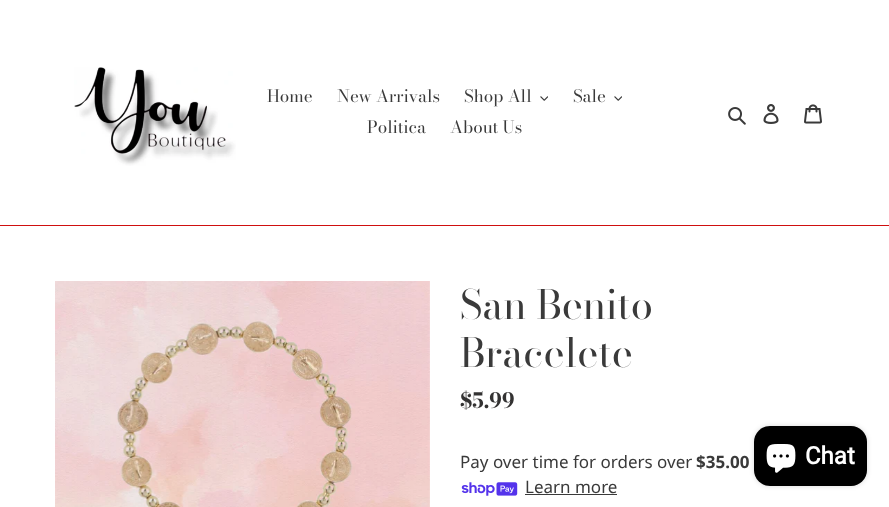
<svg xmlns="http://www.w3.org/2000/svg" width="889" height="507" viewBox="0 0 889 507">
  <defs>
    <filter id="blur1" x="-50%" y="-200%" width="200%" height="500%"><feGaussianBlur stdDeviation="2.5"/></filter>
  </defs>
  <rect width="100%" height="100%" fill="#ffffff"/>
  <rect x="0" y="225" width="889" height="1" fill="#cf0f0f"/>
  <image x="74" y="67" width="162" height="99" href="img1.png"/>
  <text x="267" y="102" font-family="'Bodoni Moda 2'" font-size="17" fill="#3a3a3a">Home</text>
  <text x="337" y="102" font-family="'Bodoni Moda 2'" font-size="17" fill="#3a3a3a">New Arrivals</text>
  <text x="464" y="102" font-family="'Bodoni Moda 2'" font-size="17" fill="#3a3a3a">Shop All</text>
  <image x="540" y="96" width="8" height="5" href="img2.png"/>
  <text x="573" y="102" font-family="'Bodoni Moda 2'" font-size="17" fill="#3a3a3a">Sale</text>
  <image x="614" y="96" width="8" height="5" href="img2.png"/>
  <text x="367" y="133" font-family="'Bodoni Moda 2'" font-size="17" fill="#3a3a3a">Politica</text>
  <text x="450" y="133" font-family="'Bodoni Moda 2'" font-size="17" fill="#3a3a3a">About Us</text>
  <image x="728" y="107" width="18" height="18" href="img3.png"/>
  <image x="763" y="104" width="16" height="20" href="img4.png"/>
  <image x="804" y="104" width="18" height="20" href="img5.png"/>
  <image x="55" y="281" width="375" height="226" href="img6.png"/>
  <text x="460" y="319" font-family="Bodoni Moda" font-size="40" fill="#3a3a3a">San Benito</text>
  <text x="460" y="367" font-family="Bodoni Moda" font-size="40" fill="#3a3a3a">Bracelete</text>
  <text x="460" y="408" font-family="Bodoni Moda" font-size="21" font-weight="bold" fill="#333232">$5.99</text>
  <text x="460" y="468" font-family="Noto Sans" font-size="17" fill="#3a3a3a">Pay over time for orders over</text>
  <text x="696" y="468" font-family="Noto Sans" font-size="17" font-weight="bold" fill="#3a3a3a">$35.00</text>
  <image x="461" y="482" width="57" height="14" href="img7.png"/>
  <text x="525" y="493" font-family="Noto Sans" font-size="17" fill="#3a3a3a">Learn more</text>
  <rect x="525" y="494" width="92" height="1" fill="#3a3a3a"/>
  <rect x="754" y="426" width="113" height="60" rx="16" fill="#000000" fill-opacity="0.15" filter="url(#blur1)"/>
  <rect x="754" y="426" width="113" height="60" rx="16" fill="#000000"/>
  <image x="766" y="444" width="30" height="29" href="img8.png"/>
  <text x="805" y="464" font-family="Roboto" font-size="24" font-weight="bold" fill="#ffffff">Chat</text>
</svg>
